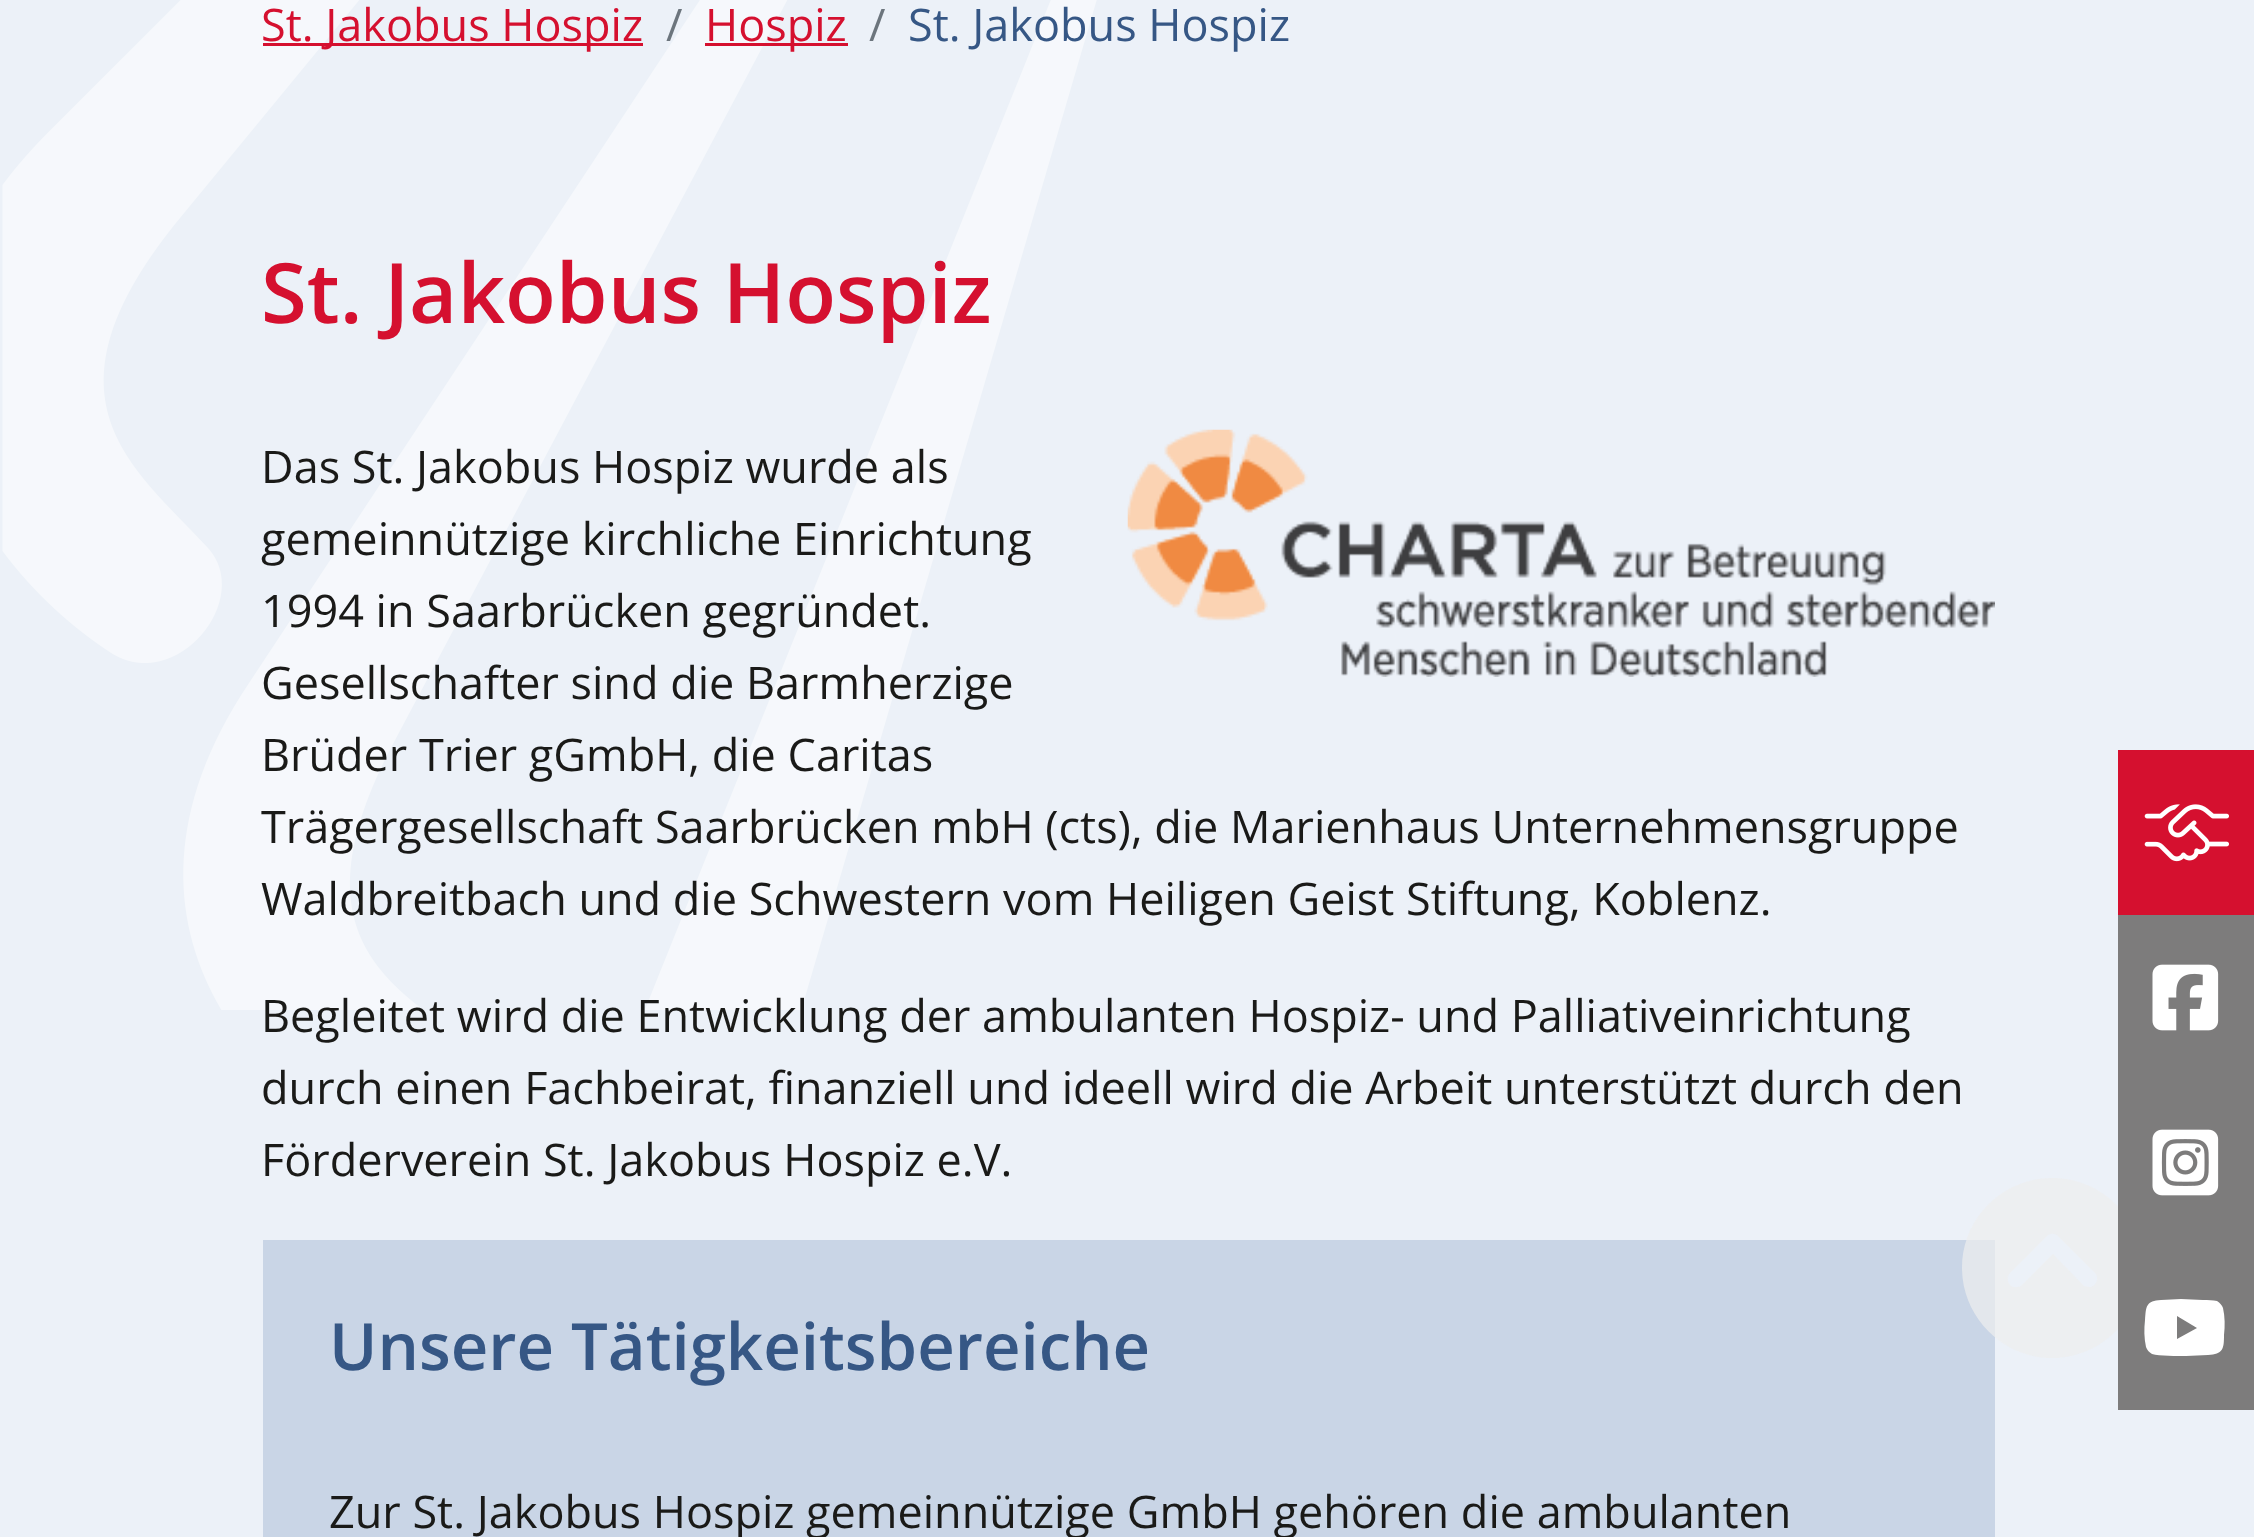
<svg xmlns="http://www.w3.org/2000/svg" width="2254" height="1537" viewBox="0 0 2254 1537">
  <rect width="100%" height="100%" fill="#ecf1f8"/>
  <image x="2" y="0" width="1095" height="1010" href="img1.png"/>
  <rect x="263" y="43" width="380" height="3" fill="#d5102f"/>
  <text x="261" y="41" font-family="Open Sans" font-size="45" fill="#d5102f">St. Jakobus Hospiz</text>
  <text x="666" y="41" font-family="Open Sans" font-size="45" fill="#6c757d">/</text>
  <rect x="705" y="43" width="143" height="3" fill="#d5102f"/>
  <text x="705" y="41" font-family="Open Sans" font-size="45" fill="#d5102f">Hospiz</text>
  <text x="869" y="41" font-family="Open Sans" font-size="45" fill="#6c757d">/</text>
  <text x="908" y="41" font-family="Open Sans" font-size="45" fill="#365785">St. Jakobus Hospiz</text>
  <text x="261" y="323" font-family="Open Sans" font-size="83.25" font-weight="600" fill="#d5102f">St. Jakobus Hospiz</text>
  <image x="1127" y="429" width="868" height="248" href="img2.png"/>
  <text x="261" y="483" font-family="Open Sans" font-size="45" fill="#1a1a18">Das St. Jakobus Hospiz wurde als</text>
  <text x="261" y="555" font-family="Open Sans" font-size="45" fill="#1a1a18">gemeinnützige kirchliche Einrichtung</text>
  <text x="261" y="627" font-family="Open Sans" font-size="45" fill="#1a1a18">1994 in Saarbrücken gegründet.</text>
  <text x="261" y="699" font-family="Open Sans" font-size="45" fill="#1a1a18">Gesellschafter sind die Barmherzige</text>
  <text x="261" y="771" font-family="Open Sans" font-size="45" fill="#1a1a18">Brüder Trier gGmbH, die Caritas</text>
  <text x="261" y="843" font-family="Open Sans" font-size="45" fill="#1a1a18">Trägergesellschaft Saarbrücken mbH (cts), die Marienhaus Unternehmensgruppe</text>
  <text x="261" y="915" font-family="Open Sans" font-size="45" fill="#1a1a18">Waldbreitbach und die Schwestern vom Heiligen Geist Stiftung, Koblenz.</text>
  <text x="261" y="1032" font-family="Open Sans" font-size="45" fill="#1a1a18">Begleitet wird die Entwicklung der ambulanten Hospiz- und Palliativeinrichtung</text>
  <text x="261" y="1104" font-family="Open Sans" font-size="45" fill="#1a1a18">durch einen Fachbeirat, finanziell und ideell wird die Arbeit unterstützt durch den</text>
  <text x="261" y="1176" font-family="Open Sans" font-size="45" fill="#1a1a18">Förderverein St. Jakobus Hospiz e.V.</text>
  <rect x="263" y="1240" width="1732" height="297" fill="#c9d5e6"/>
  <text x="329" y="1370" font-family="Open Sans" font-size="65.25" font-weight="600" fill="#365785">Unsere Tätigkeitsbereiche</text>
  <text x="329" y="1528" font-family="Open Sans" font-size="45" fill="#1a1a18">Zur St. Jakobus Hospiz gemeinnützige GmbH gehören die ambulanten</text>
  <path d="M2052 1358C2102 1358 2142 1317 2142 1268C2142 1218 2102 1178 2052 1178C2003 1178 1962 1218 1962 1268C1962 1317 2003 1358 2052 1358ZM2095 1273C2100 1278 2096 1287 2089 1287L2084 1286L2053 1254L2022 1285C2019 1288 2013 1288 2010 1285C2007 1281 2007 1276 2010 1273L2047 1236C2050 1233 2055 1233 2058 1236Z" fill="#eeeeee" fill-opacity="0.7"/>
  <rect x="2118" y="915" width="136" height="495" fill="#7d7c7c"/>
  <rect x="2118" y="750" width="136" height="165" fill="#d5102f"/>
  <image x="2144" y="804" width="85" height="58" href="img3.png"/>
  <image x="2152" y="964" width="67" height="67" href="img4.png"/>
  <image x="2152" y="1129" width="67" height="67" href="img5.png"/>
  <path d="M2223 1308C2222 1305 2220 1303 2217 1301C2213 1300 2208 1300 2203 1300L2181 1299L2161 1300C2146 1301 2146 1306 2145 1320C2144 1329 2144 1338 2146 1347C2147 1350 2149 1352 2152 1354C2159 1356 2178 1356 2186 1356L2208 1355C2223 1354 2224 1349 2224 1335C2225 1326 2225 1317 2223 1308ZM2177 1339V1316L2197 1328Z" fill="#ffffff"/>
</svg>
